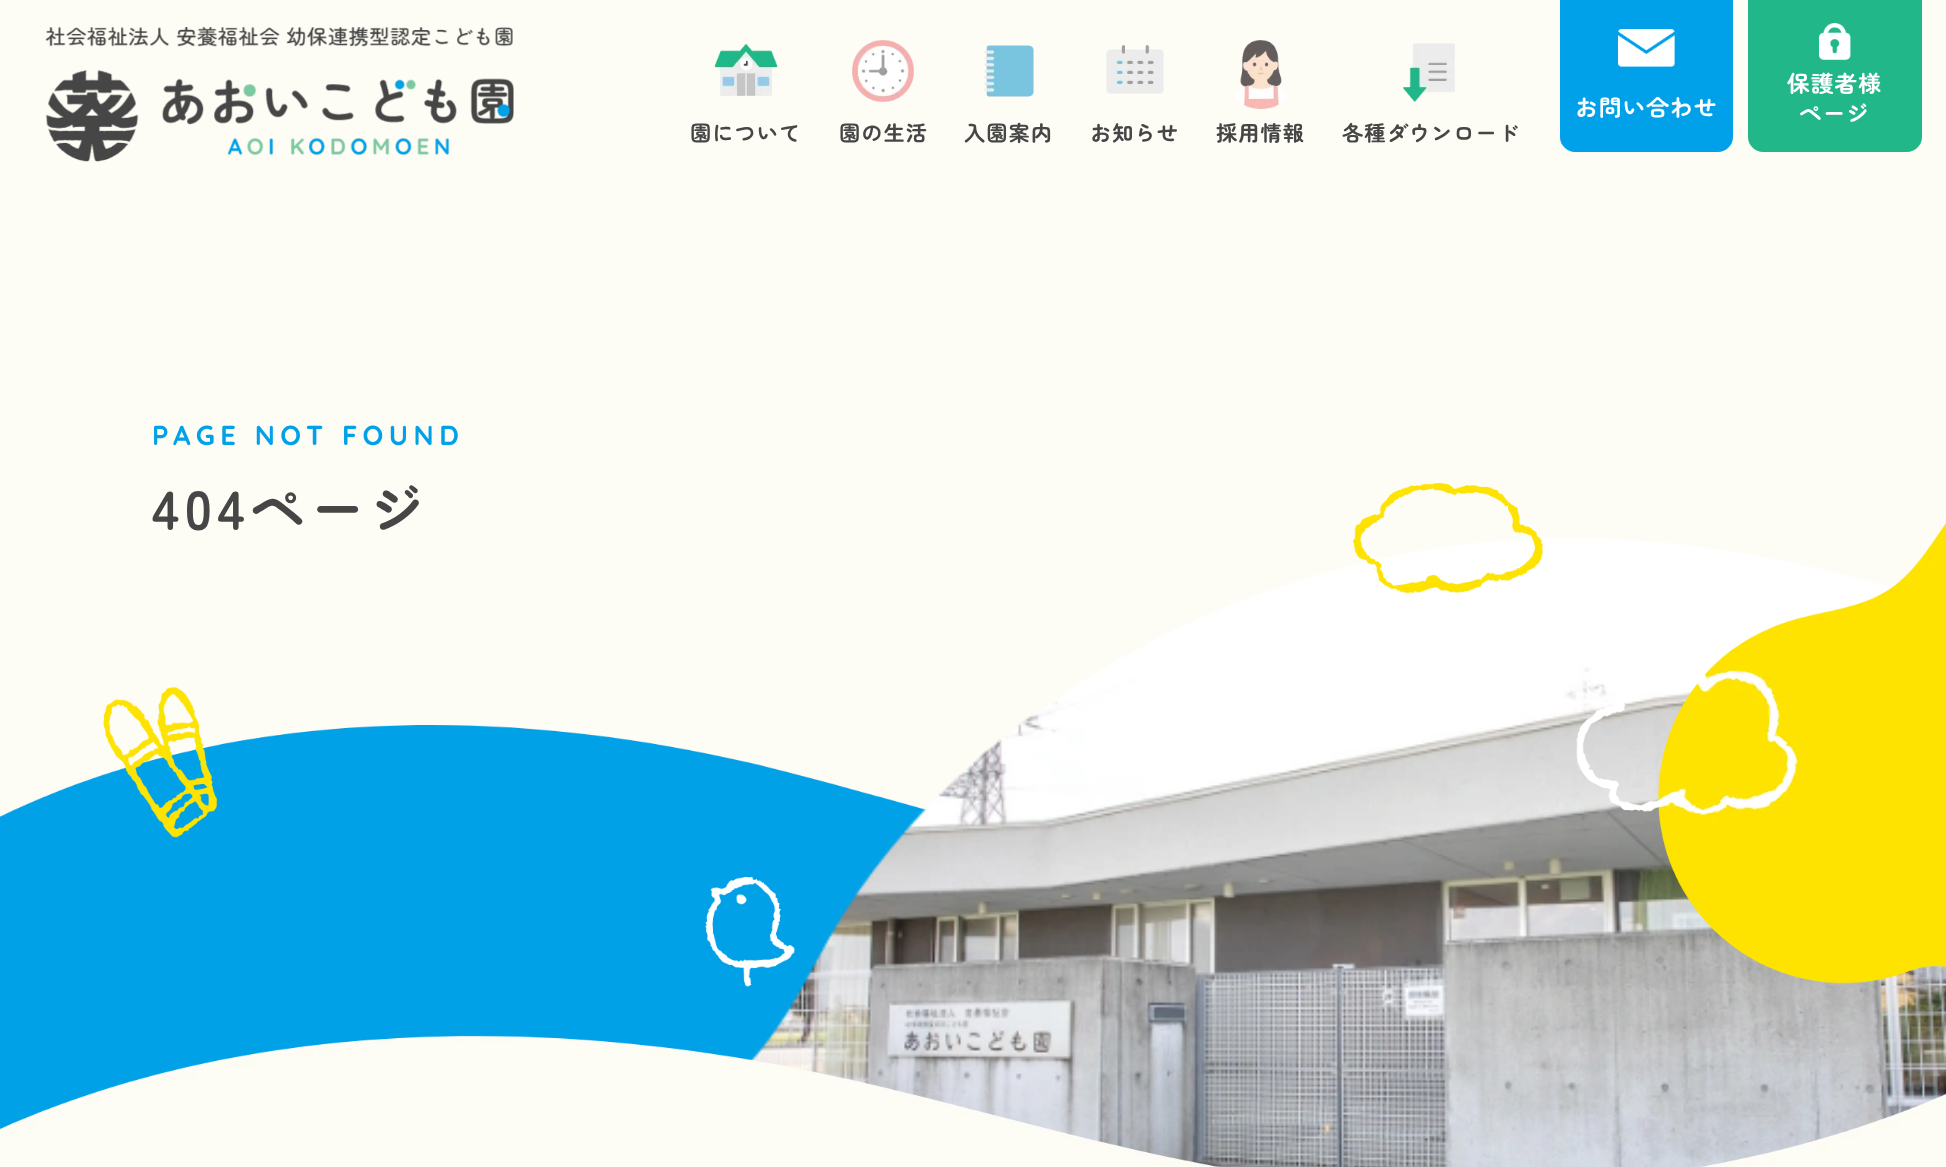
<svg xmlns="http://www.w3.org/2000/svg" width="1946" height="1167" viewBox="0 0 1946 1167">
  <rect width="100%" height="100%" fill="#fdfcf5"/>
  <image x="45" y="27" width="469" height="135" href="img1.png"/>
  <path d="M1562 2H1731V137C1731 144 1725 150 1718 150H1575C1568 150 1562 144 1562 137Z" fill="#01a1e9" stroke="#01a1e9" stroke-width="4"/>
  <image x="1618" y="29" width="57" height="38" href="img2.png"/>
  <text x="1575" y="116" font-family="Zen Maru Gothic" font-size="22.75" font-weight="bold" letter-spacing="1" fill="#ffffff">お問い合わせ</text>
  <path d="M1750 2H1920V137C1920 144 1914 150 1907 150H1763C1756 150 1750 144 1750 137Z" fill="#21b789" stroke="#21b789" stroke-width="4"/>
  <image x="1819" y="23" width="32" height="37" href="img3.png"/>
  <text x="1787" y="92" font-family="Zen Maru Gothic" font-size="22.75" font-weight="bold" letter-spacing="1" fill="#ffffff">保護者様</text>
  <text x="1799" y="122" font-family="Zen Maru Gothic" font-size="22.75" font-weight="bold" letter-spacing="1" fill="#ffffff">ページ</text>
  <image x="714" y="43" width="64" height="53" href="img4.png"/>
  <text x="690" y="141" font-family="Zen Maru Gothic" font-size="21.25" font-weight="bold" letter-spacing="1" fill="#464646">園について</text>
  <image x="852" y="40" width="62" height="62" href="img5.png"/>
  <text x="839" y="141" font-family="Zen Maru Gothic" font-size="21.25" font-weight="bold" letter-spacing="1" fill="#464646">園の生活</text>
  <image x="984" y="45" width="50" height="52" href="img6.png"/>
  <text x="964" y="141" font-family="Zen Maru Gothic" font-size="21.25" font-weight="bold" letter-spacing="1" fill="#464646">入園案内</text>
  <image x="1106" y="45" width="58" height="49" href="img7.png"/>
  <text x="1090" y="141" font-family="Zen Maru Gothic" font-size="21.25" font-weight="bold" letter-spacing="1" fill="#464646">お知らせ</text>
  <image x="1235" y="40" width="53" height="69" href="img8.png"/>
  <text x="1216" y="141" font-family="Zen Maru Gothic" font-size="21.25" font-weight="bold" letter-spacing="1" fill="#464646">採用情報</text>
  <image x="1403" y="43" width="52" height="59" href="img9.png"/>
  <text x="1342" y="141" font-family="Zen Maru Gothic" font-size="21.25" font-weight="bold" letter-spacing="1" fill="#464646">各種ダウンロード</text>
  <text x="152" y="445" font-family="Quicksand" font-size="27.4" font-weight="bold" letter-spacing="5.5" fill="#01a1e9">PAGE NOT FOUND</text>
  <image x="0" y="725" width="928" height="405" href="img11.png"/>
  <image x="749" y="538" width="1197" height="629" href="img12.png"/>
  <image x="0" y="483" width="1946" height="684" href="img10.png"/>
  <text x="152" y="530" font-family="Zen Maru Gothic" font-size="54.75" font-weight="bold" letter-spacing="5.5" fill="#464646">404ページ</text>
</svg>
